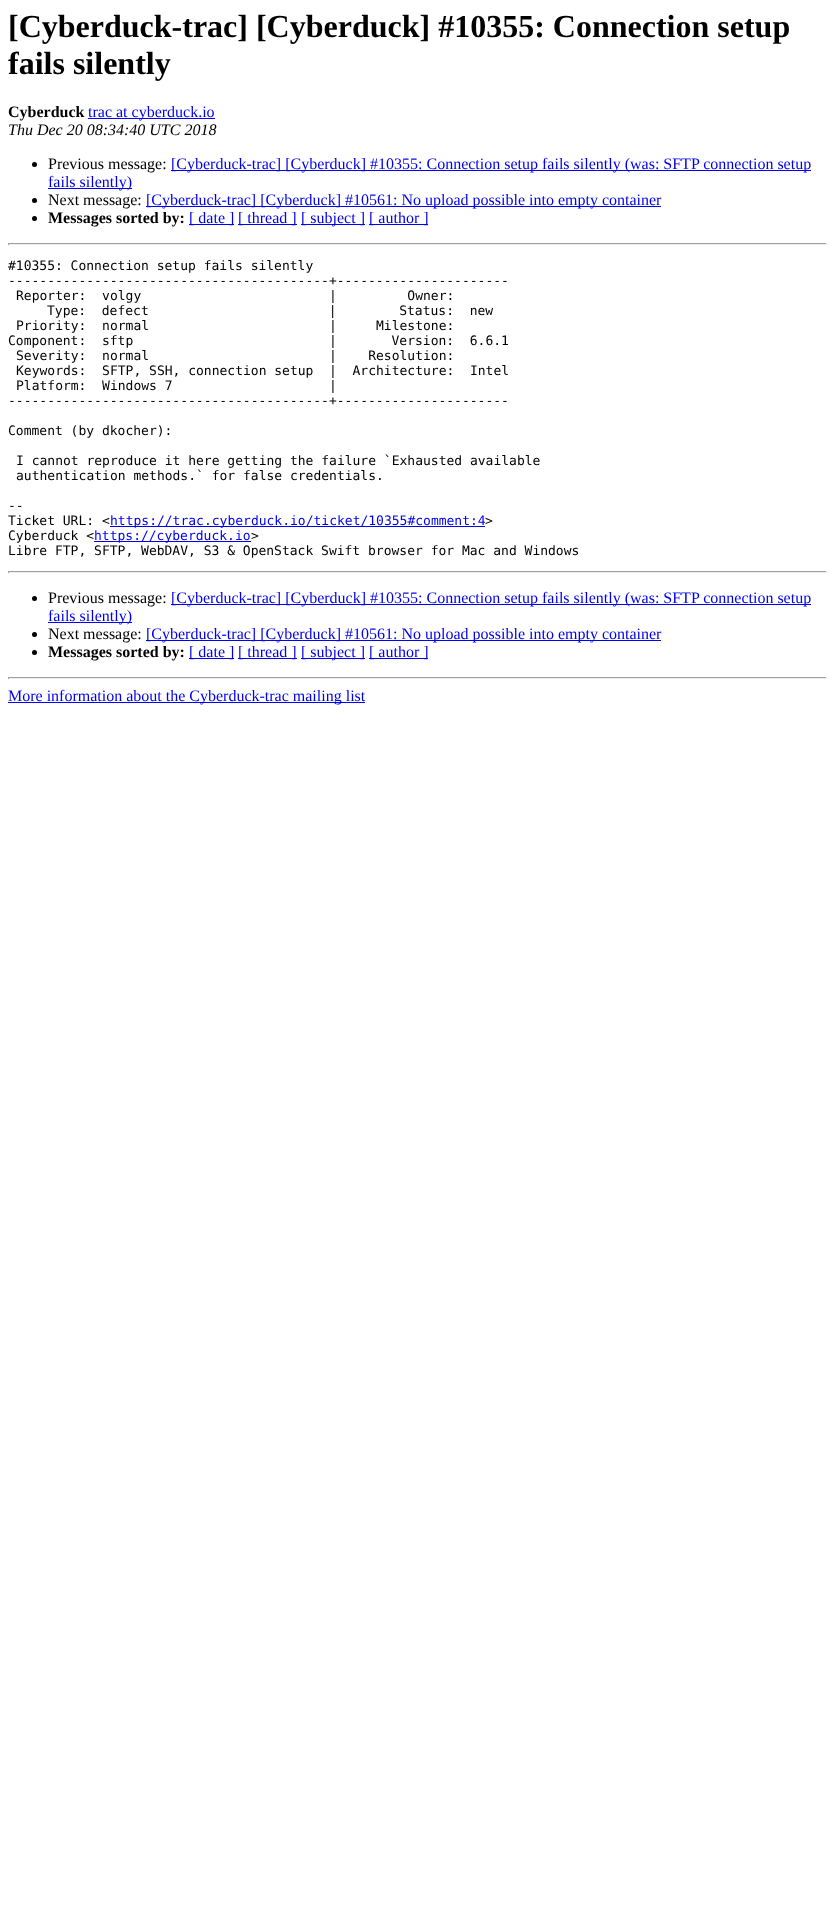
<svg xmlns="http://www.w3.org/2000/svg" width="835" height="1930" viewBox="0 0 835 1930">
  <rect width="100%" height="100%" fill="#ffffff"/>
  <text x="8" y="37" font-family="Liberation Serif" font-size="32" font-weight="bold" fill="#000000">[Cyberduck-trac] [Cyberduck] #10355: Connection setup</text>
  <text x="8" y="74" font-family="Liberation Serif" font-size="32" font-weight="bold" fill="#000000">fails silently</text>
  <text x="8" y="117" font-family="Liberation Serif" font-size="16" font-weight="bold" fill="#000000">Cyberduck</text>
  <rect x="88" y="118" width="127" height="1" fill="#0000ee"/>
  <text x="88" y="117" font-family="Liberation Serif" font-size="16" fill="#0000ee">trac at cyberduck.io</text>
  <text x="8" y="135" font-family="Liberation Serif" font-size="16" font-style="italic" fill="#000000">Thu Dec 20 08:34:40 UTC 2018</text>
  <circle cx="34.5" cy="164.5" r="2.5" fill="#000000"/>
  <text x="48" y="169" font-family="Liberation Serif" font-size="16" fill="#000000">Previous message:</text>
  <rect x="171" y="170" width="640" height="1" fill="#0000ee"/>
  <text x="171" y="169" font-family="Liberation Serif" font-size="16" fill="#0000ee">[Cyberduck-trac] [Cyberduck] #10355: Connection setup fails silently (was: SFTP connection setup</text>
  <rect x="48" y="188" width="84" height="1" fill="#0000ee"/>
  <text x="48" y="187" font-family="Liberation Serif" font-size="16" fill="#0000ee">fails silently)</text>
  <circle cx="34.5" cy="200.5" r="2.5" fill="#000000"/>
  <text x="48" y="205" font-family="Liberation Serif" font-size="16" fill="#000000">Next message:</text>
  <rect x="146" y="206" width="515" height="1" fill="#0000ee"/>
  <text x="146" y="205" font-family="Liberation Serif" font-size="16" fill="#0000ee">[Cyberduck-trac] [Cyberduck] #10561: No upload possible into empty container</text>
  <circle cx="34.5" cy="218.5" r="2.5" fill="#000000"/>
  <text x="48" y="223" font-family="Liberation Serif" font-size="16" font-weight="bold" fill="#000000">Messages sorted by:</text>
  <rect x="189" y="224" width="45" height="1" fill="#0000ee"/>
  <text x="189" y="223" font-family="Liberation Serif" font-size="16" fill="#0000ee">[ date ]</text>
  <rect x="238" y="224" width="59" height="1" fill="#0000ee"/>
  <text x="238" y="223" font-family="Liberation Serif" font-size="16" fill="#0000ee">[ thread ]</text>
  <rect x="301" y="224" width="64" height="1" fill="#0000ee"/>
  <text x="301" y="223" font-family="Liberation Serif" font-size="16" fill="#0000ee">[ subject ]</text>
  <rect x="369" y="224" width="59" height="1" fill="#0000ee"/>
  <text x="369" y="223" font-family="Liberation Serif" font-size="16" fill="#0000ee">[ author ]</text>
  <rect x="8" y="243" width="819" height="1" fill="#9f9f9f"/>
  <rect x="826" y="243" width="1" height="2" fill="#eeeeee"/>
  <rect x="8" y="244" width="819" height="1" fill="#eeeeee"/>
  <rect x="8" y="243" width="1" height="2" fill="#9f9f9f"/>
  <text x="8" y="270" font-family="DejaVu Sans Mono" font-size="13" fill="#000000">#10355: Connection setup fails silently</text>
  <text x="8" y="285" font-family="DejaVu Sans Mono" font-size="13" fill="#000000">-----------------------------------------+----------------------</text>
  <text x="16" y="300" font-family="DejaVu Sans Mono" font-size="13" fill="#000000" xml:space="preserve">Reporter:  volgy                        |         Owner:</text>
  <text x="47" y="315" font-family="DejaVu Sans Mono" font-size="13" fill="#000000" xml:space="preserve">Type:  defect                       |        Status:  new</text>
  <text x="16" y="330" font-family="DejaVu Sans Mono" font-size="13" fill="#000000" xml:space="preserve">Priority:  normal                       |     Milestone:</text>
  <text x="8" y="345" font-family="DejaVu Sans Mono" font-size="13" fill="#000000" xml:space="preserve">Component:  sftp                         |       Version:  6.6.1</text>
  <text x="16" y="360" font-family="DejaVu Sans Mono" font-size="13" fill="#000000" xml:space="preserve">Severity:  normal                       |    Resolution:</text>
  <text x="16" y="375" font-family="DejaVu Sans Mono" font-size="13" fill="#000000" xml:space="preserve">Keywords:  SFTP, SSH, connection setup  |  Architecture:  Intel</text>
  <text x="16" y="390" font-family="DejaVu Sans Mono" font-size="13" fill="#000000" xml:space="preserve">Platform:  Windows 7                    |</text>
  <text x="8" y="405" font-family="DejaVu Sans Mono" font-size="13" fill="#000000">-----------------------------------------+----------------------</text>
  <text x="8" y="435" font-family="DejaVu Sans Mono" font-size="13" fill="#000000">Comment (by dkocher):</text>
  <text x="16" y="465" font-family="DejaVu Sans Mono" font-size="13" fill="#000000">I cannot reproduce it here getting the failure `Exhausted available</text>
  <text x="16" y="480" font-family="DejaVu Sans Mono" font-size="13" fill="#000000">authentication methods.` for false credentials.</text>
  <text x="8" y="510" font-family="DejaVu Sans Mono" font-size="13" fill="#000000">--</text>
  <text x="8" y="525" font-family="DejaVu Sans Mono" font-size="13" fill="#000000">Ticket URL: &lt;</text>
  <rect x="110" y="526" width="375" height="1" fill="#0000ee"/>
  <text x="110" y="525" font-family="DejaVu Sans Mono" font-size="13" fill="#0000ee">https://trac.cyberduck.io/ticket/10355#comment:4</text>
  <text x="485" y="525" font-family="DejaVu Sans Mono" font-size="13" fill="#000000">&gt;</text>
  <text x="8" y="540" font-family="DejaVu Sans Mono" font-size="13" fill="#000000">Cyberduck &lt;</text>
  <rect x="94" y="541" width="157" height="1" fill="#0000ee"/>
  <text x="94" y="540" font-family="DejaVu Sans Mono" font-size="13" fill="#0000ee">https://cyberduck.io</text>
  <text x="251" y="540" font-family="DejaVu Sans Mono" font-size="13" fill="#000000">&gt;</text>
  <text x="8" y="555" font-family="DejaVu Sans Mono" font-size="13" fill="#000000">Libre FTP, SFTP, WebDAV, S3 &amp; OpenStack Swift browser for Mac and Windows</text>
  <rect x="8" y="571" width="819" height="1" fill="#9f9f9f"/>
  <rect x="826" y="571" width="1" height="2" fill="#eeeeee"/>
  <rect x="8" y="572" width="819" height="1" fill="#eeeeee"/>
  <rect x="8" y="571" width="1" height="2" fill="#9f9f9f"/>
  <circle cx="34.5" cy="598.5" r="2.5" fill="#000000"/>
  <text x="48" y="603" font-family="Liberation Serif" font-size="16" fill="#000000">Previous message:</text>
  <rect x="171" y="604" width="640" height="1" fill="#0000ee"/>
  <text x="171" y="603" font-family="Liberation Serif" font-size="16" fill="#0000ee">[Cyberduck-trac] [Cyberduck] #10355: Connection setup fails silently (was: SFTP connection setup</text>
  <rect x="48" y="622" width="84" height="1" fill="#0000ee"/>
  <text x="48" y="621" font-family="Liberation Serif" font-size="16" fill="#0000ee">fails silently)</text>
  <circle cx="34.5" cy="634.5" r="2.5" fill="#000000"/>
  <text x="48" y="639" font-family="Liberation Serif" font-size="16" fill="#000000">Next message:</text>
  <rect x="146" y="640" width="515" height="1" fill="#0000ee"/>
  <text x="146" y="639" font-family="Liberation Serif" font-size="16" fill="#0000ee">[Cyberduck-trac] [Cyberduck] #10561: No upload possible into empty container</text>
  <circle cx="34.5" cy="652.5" r="2.5" fill="#000000"/>
  <text x="48" y="657" font-family="Liberation Serif" font-size="16" font-weight="bold" fill="#000000">Messages sorted by:</text>
  <rect x="189" y="658" width="45" height="1" fill="#0000ee"/>
  <text x="189" y="657" font-family="Liberation Serif" font-size="16" fill="#0000ee">[ date ]</text>
  <rect x="238" y="658" width="59" height="1" fill="#0000ee"/>
  <text x="238" y="657" font-family="Liberation Serif" font-size="16" fill="#0000ee">[ thread ]</text>
  <rect x="301" y="658" width="64" height="1" fill="#0000ee"/>
  <text x="301" y="657" font-family="Liberation Serif" font-size="16" fill="#0000ee">[ subject ]</text>
  <rect x="369" y="658" width="59" height="1" fill="#0000ee"/>
  <text x="369" y="657" font-family="Liberation Serif" font-size="16" fill="#0000ee">[ author ]</text>
  <rect x="8" y="677" width="819" height="1" fill="#9f9f9f"/>
  <rect x="826" y="677" width="1" height="2" fill="#eeeeee"/>
  <rect x="8" y="678" width="819" height="1" fill="#eeeeee"/>
  <rect x="8" y="677" width="1" height="2" fill="#9f9f9f"/>
  <rect x="8" y="702" width="357" height="1" fill="#0000ee"/>
  <text x="8" y="701" font-family="Liberation Serif" font-size="16" fill="#0000ee">More information about the Cyberduck-trac mailing list</text>
</svg>
